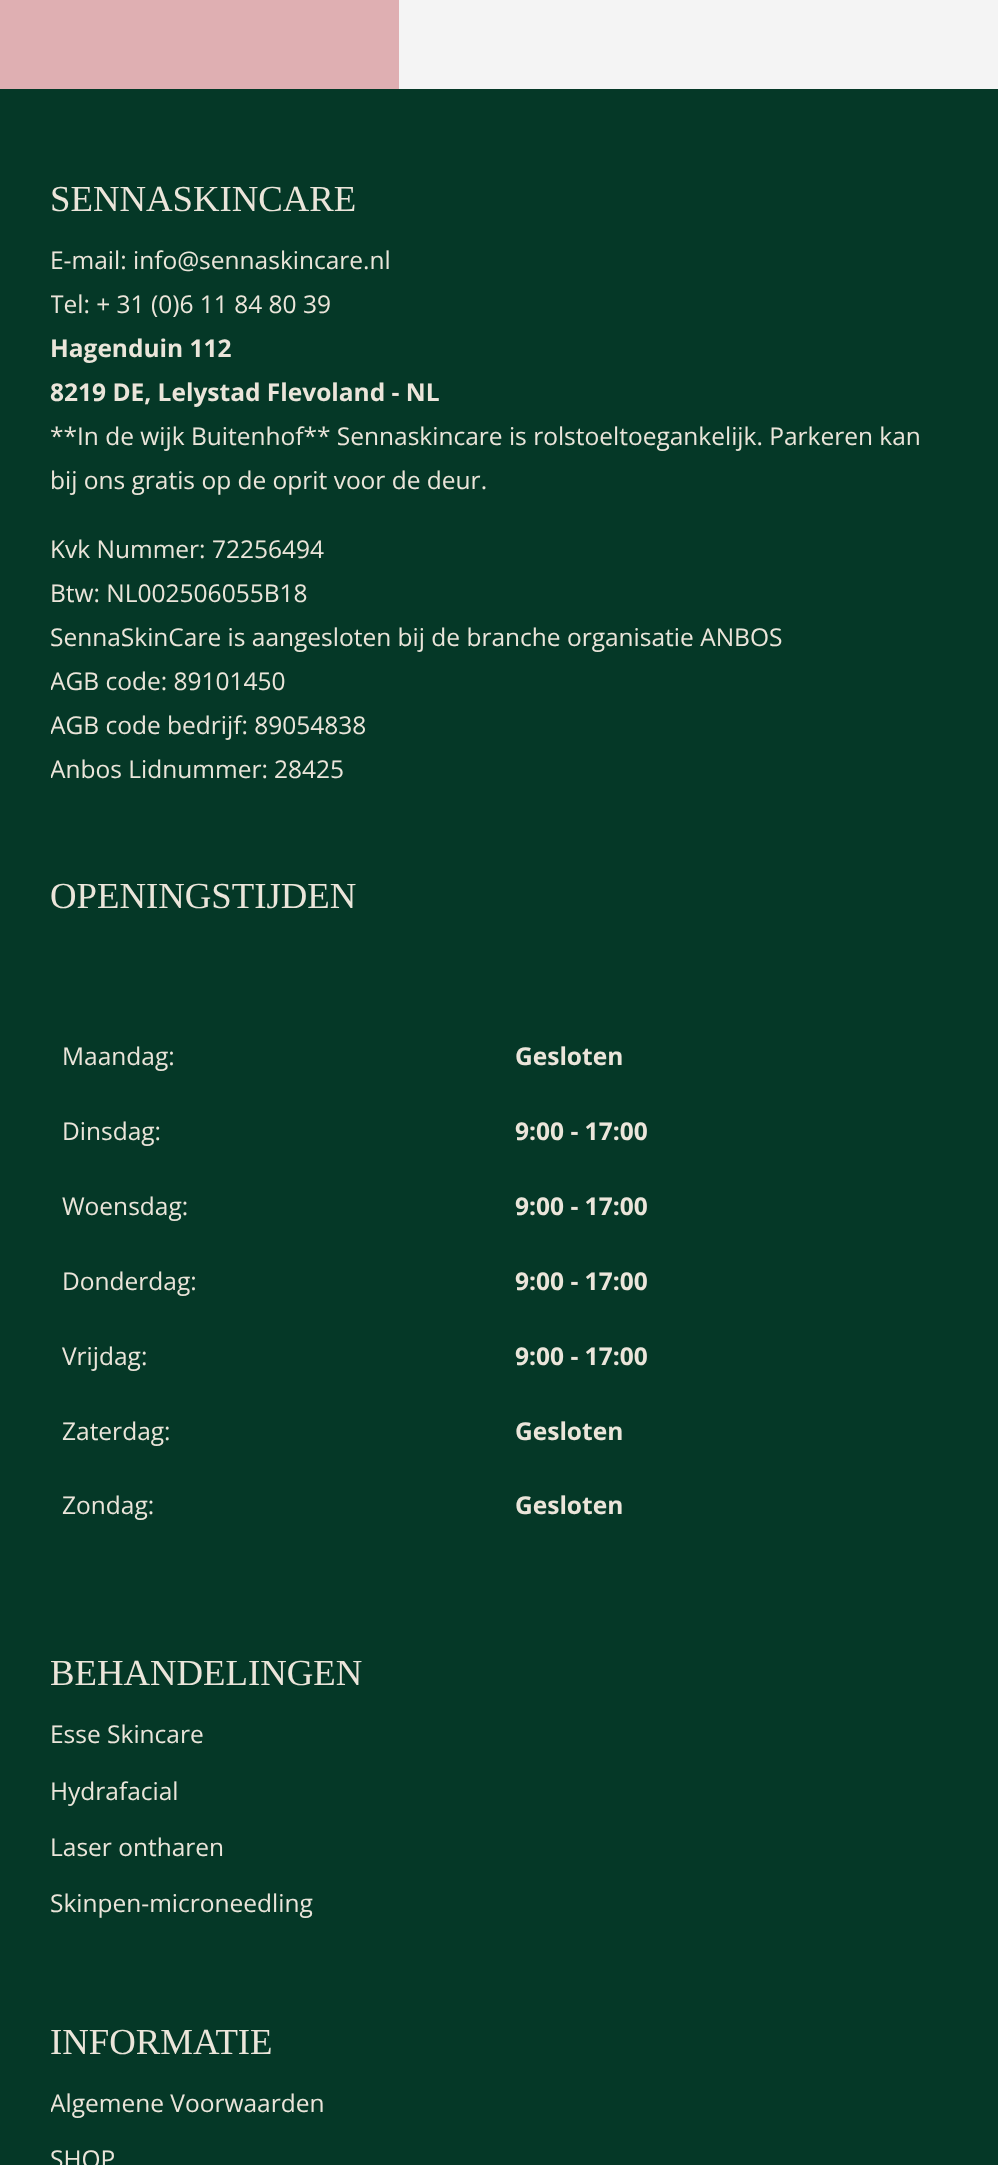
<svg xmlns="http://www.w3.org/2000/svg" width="998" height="2165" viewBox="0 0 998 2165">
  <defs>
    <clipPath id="clip1"><rect x="51" y="89" width="898" height="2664"/></clipPath>
  </defs>
  <rect width="100%" height="100%" fill="#053827"/>
  <rect x="0" y="0" width="399" height="89" fill="#dfafb2"/>
  <rect x="399" y="0" width="599" height="89" fill="#f4f4f4"/>
  <text x="50" y="211" font-family="Liberation Serif" font-size="36.75" fill="#ebe5da">SENNASKINCARE</text>
  <text x="50" y="269" font-family="Open Sans" font-size="24.5" fill="#ebe5da">E-mail: info@sennaskincare.nl</text>
  <g clip-path="url(#clip1)">
    <text x="50" y="313" font-family="Open Sans" font-size="24.5" fill="#ebe5da">Tel: + 31 (0)6 11 84 80 39</text>
  </g>
  <text x="50" y="357" font-family="Open Sans" font-size="24.5" font-weight="bold" fill="#ebe5da">Hagenduin 112</text>
  <text x="50" y="401" font-family="Open Sans" font-size="24.5" font-weight="bold" fill="#ebe5da">8219 DE, Lelystad Flevoland - NL</text>
  <text x="50" y="445" font-family="Open Sans" font-size="24.5" fill="#ebe5da">**In de wijk Buitenhof** Sennaskincare is rolstoeltoegankelijk. Parkeren kan</text>
  <text x="50" y="489" font-family="Open Sans" font-size="24.5" fill="#ebe5da">bij ons gratis op de oprit voor de deur.</text>
  <text x="50" y="558" font-family="Open Sans" font-size="24.5" fill="#ebe5da">Kvk Nummer: 72256494</text>
  <text x="50" y="602" font-family="Open Sans" font-size="24.5" fill="#ebe5da">Btw: NL002506055B18</text>
  <text x="50" y="646" font-family="Open Sans" font-size="24.5" fill="#ebe5da">SennaSkinCare is aangesloten bij de branche organisatie ANBOS</text>
  <g clip-path="url(#clip1)">
    <text x="50" y="690" font-family="Open Sans" font-size="24.5" fill="#ebe5da">AGB code: 89101450</text>
    <text x="50" y="734" font-family="Open Sans" font-size="24.5" fill="#ebe5da">AGB code bedrijf: 89054838</text>
    <text x="50" y="778" font-family="Open Sans" font-size="24.5" fill="#ebe5da">Anbos Lidnummer:</text>
  </g>
  <text x="274" y="778" font-family="Open Sans" font-size="24.5" fill="#ebe5da">28425</text>
  <text x="50" y="908" font-family="Liberation Serif" font-size="36.75" fill="#ebe5da">OPENINGSTIJDEN</text>
  <text x="62" y="1065" font-family="Open Sans" font-size="24.5" fill="#ebe5da">Maandag:</text>
  <text x="515" y="1065" font-family="Open Sans" font-size="24.5" font-weight="bold" fill="#ebe5da">Gesloten</text>
  <text x="62" y="1140" font-family="Open Sans" font-size="24.5" fill="#ebe5da">Dinsdag:</text>
  <text x="515" y="1140" font-family="Open Sans" font-size="24.5" font-weight="bold" fill="#ebe5da">9:00 - 17:00</text>
  <text x="62" y="1215" font-family="Open Sans" font-size="24.5" fill="#ebe5da">Woensdag:</text>
  <text x="515" y="1215" font-family="Open Sans" font-size="24.5" font-weight="bold" fill="#ebe5da">9:00 - 17:00</text>
  <text x="62" y="1290" font-family="Open Sans" font-size="24.5" fill="#ebe5da">Donderdag:</text>
  <text x="515" y="1290" font-family="Open Sans" font-size="24.5" font-weight="bold" fill="#ebe5da">9:00 - 17:00</text>
  <text x="62" y="1365" font-family="Open Sans" font-size="24.5" fill="#ebe5da">Vrijdag:</text>
  <text x="515" y="1365" font-family="Open Sans" font-size="24.5" font-weight="bold" fill="#ebe5da">9:00 - 17:00</text>
  <text x="62" y="1440" font-family="Open Sans" font-size="24.5" fill="#ebe5da">Zaterdag:</text>
  <text x="515" y="1440" font-family="Open Sans" font-size="24.5" font-weight="bold" fill="#ebe5da">Gesloten</text>
  <text x="62" y="1514" font-family="Open Sans" font-size="24.5" fill="#ebe5da">Zondag:</text>
  <text x="515" y="1514" font-family="Open Sans" font-size="24.5" font-weight="bold" fill="#ebe5da">Gesloten</text>
  <text x="50" y="1685" font-family="Liberation Serif" font-size="36.75" fill="#ebe5da">BEHANDELINGEN</text>
  <text x="50" y="1743" font-family="Open Sans" font-size="24.5" fill="#ebe5da">Esse Skincare</text>
  <text x="50" y="1800" font-family="Open Sans" font-size="24.5" fill="#ebe5da">Hydrafacial</text>
  <text x="50" y="1856" font-family="Open Sans" font-size="24.5" fill="#ebe5da">Laser ontharen</text>
  <text x="50" y="1912" font-family="Open Sans" font-size="24.5" fill="#ebe5da">Skinpen-microneedling</text>
  <text x="50" y="2054" font-family="Liberation Serif" font-size="36.75" fill="#ebe5da">INFORMATIE</text>
  <g clip-path="url(#clip1)">
    <text x="50" y="2112" font-family="Open Sans" font-size="24.5" fill="#ebe5da">Algemene Voorwaarden</text>
  </g>
  <text x="50" y="2168" font-family="Open Sans" font-size="24.5" fill="#ebe5da">SHOP</text>
</svg>
